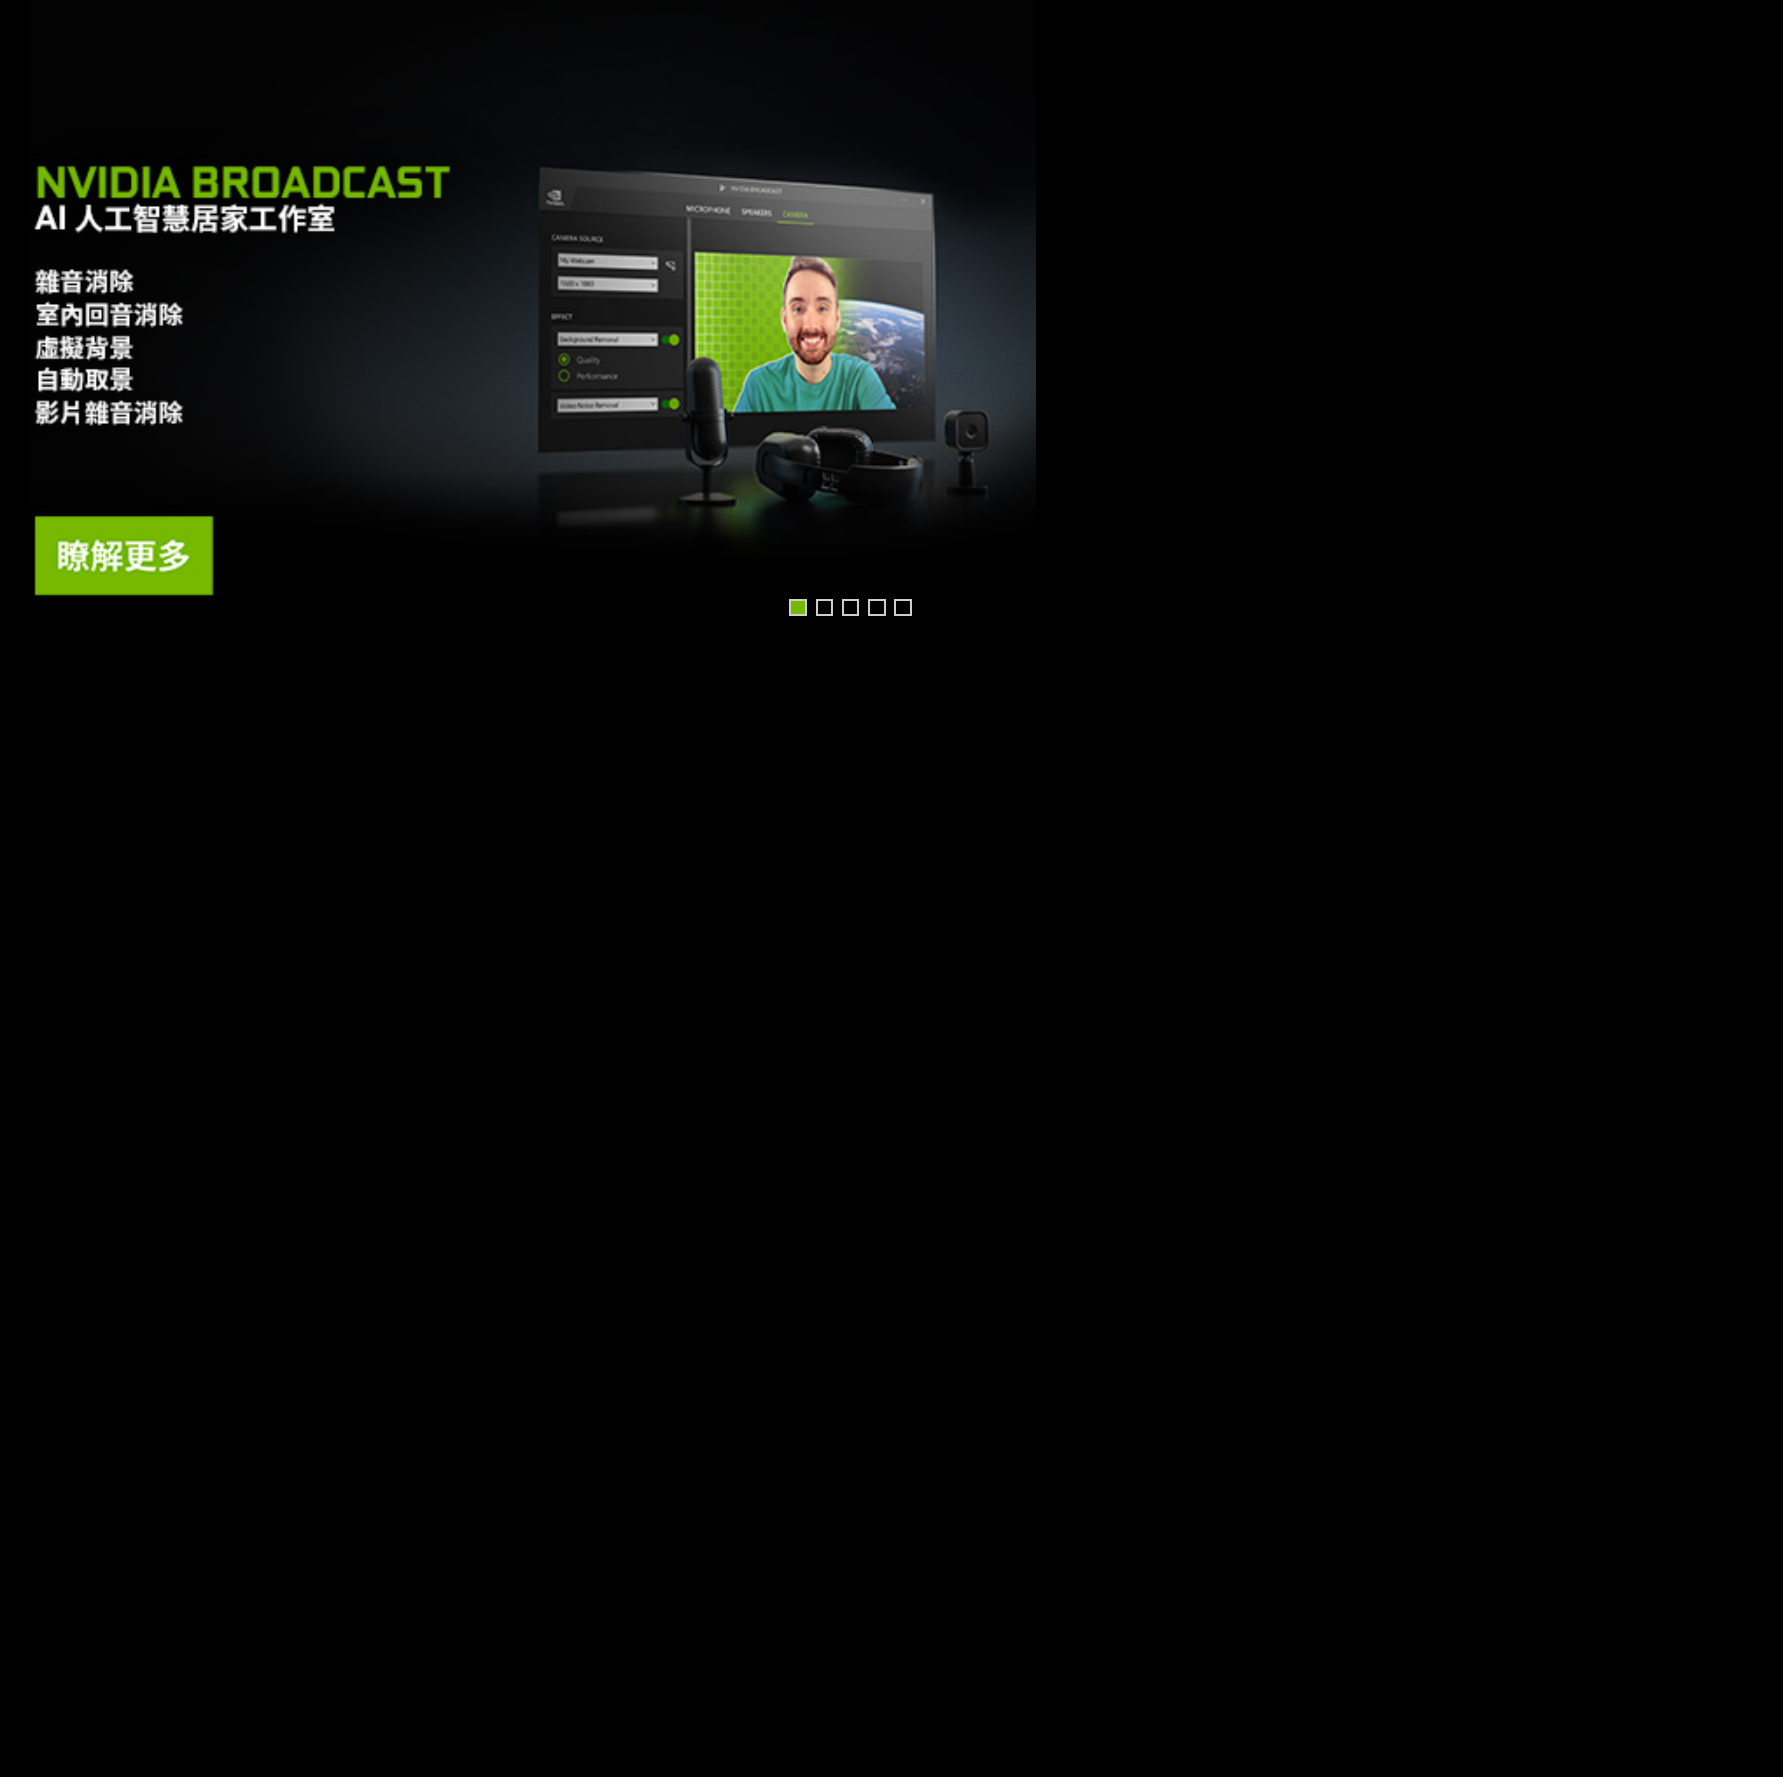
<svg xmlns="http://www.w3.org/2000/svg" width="1783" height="1777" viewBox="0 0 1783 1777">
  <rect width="100%" height="100%" fill="#000000"/>
  <image x="28" y="0" width="1008" height="596" href="img1.png"/>
  <rect x="790" y="600" width="16" height="15" fill="#76b900" stroke="#cecece" stroke-width="2"/>
  <rect x="817" y="600" width="15" height="15" fill="none" stroke="#cecece" stroke-width="2"/>
  <rect x="843" y="600" width="15" height="15" fill="none" stroke="#cecece" stroke-width="2"/>
  <rect x="869" y="600" width="16" height="15" fill="none" stroke="#cecece" stroke-width="2"/>
  <rect x="895" y="600" width="16" height="15" fill="none" stroke="#cecece" stroke-width="2"/>
</svg>
